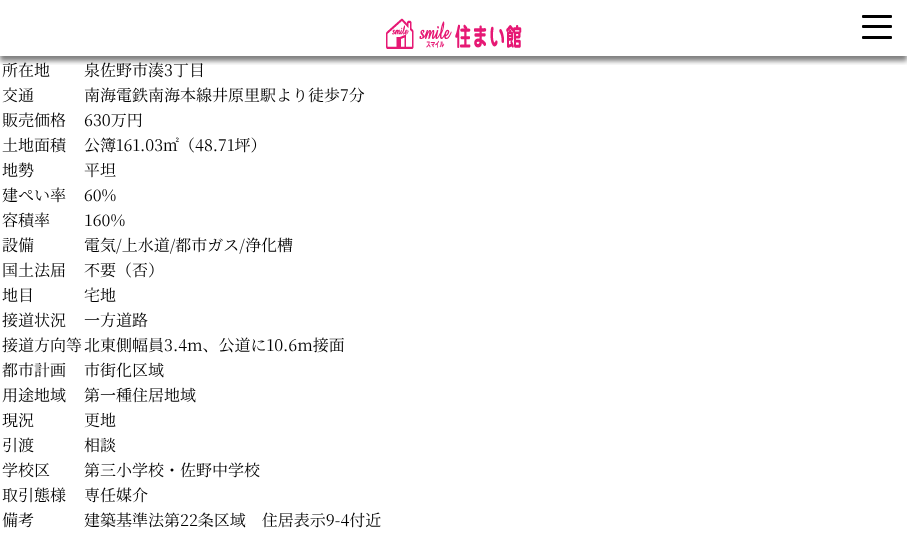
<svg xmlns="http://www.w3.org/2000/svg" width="907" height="544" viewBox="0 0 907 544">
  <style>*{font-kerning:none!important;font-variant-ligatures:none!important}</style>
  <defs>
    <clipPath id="clip1"><rect x="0" y="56" width="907" height="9"/></clipPath>
    <filter id="blur1" x="-50%" y="-200%" width="200%" height="500%"><feGaussianBlur stdDeviation="2.5"/></filter>
  </defs>
  <rect width="100%" height="100%" fill="#ffffff"/>
  <g clip-path="url(#clip1)">
    <rect x="0" y="5" width="907" height="56" fill="#000000" fill-opacity="0.5" filter="url(#blur1)"/>
  </g>
  <rect x="862" y="25" width="30" height="3" rx="1" fill="#000000"/>
  <rect x="862" y="15" width="30" height="3" rx="1" fill="#000000"/>
  <rect x="862" y="36" width="30" height="3" rx="1" fill="#000000"/>
  <image x="386" y="18" width="136" height="31" href="img1.png"/>
  <text x="2" y="76" font-family="Noto Serif JP" font-size="16" font-weight="200" fill="#000000">所在地</text>
  <text x="84" y="76" font-family="Noto Serif JP" font-size="16" font-weight="200" fill="#000000">泉佐野市湊3丁目</text>
  <text x="2" y="101" font-family="Noto Serif JP" font-size="16" font-weight="200" fill="#000000">交通</text>
  <text x="84" y="101" font-family="Noto Serif JP" font-size="16" font-weight="200" fill="#000000">南海電鉄南海本線井原里駅より徒歩7分</text>
  <text x="2" y="126" font-family="Noto Serif JP" font-size="16" font-weight="200" fill="#000000">販売価格</text>
  <text x="84" y="126" font-family="Noto Serif JP" font-size="16" font-weight="200" fill="#000000">630万円</text>
  <text x="2" y="151" font-family="Noto Serif JP" font-size="16" font-weight="200" fill="#000000">土地面積</text>
  <text x="84" y="151" font-family="Noto Serif JP" font-size="16" font-weight="200" fill="#000000">公簿161.03㎡（48.71坪）</text>
  <text x="2" y="176" font-family="Noto Serif JP" font-size="16" font-weight="200" fill="#000000">地勢</text>
  <text x="84" y="176" font-family="Noto Serif JP" font-size="16" font-weight="200" fill="#000000">平坦</text>
  <text x="2" y="201" font-family="Noto Serif JP" font-size="16" font-weight="200" fill="#000000">建ぺい率</text>
  <text x="84" y="201" font-family="Noto Serif JP" font-size="16" font-weight="200" fill="#000000">60%</text>
  <text x="2" y="226" font-family="Noto Serif JP" font-size="16" font-weight="200" fill="#000000">容積率</text>
  <text x="84" y="226" font-family="Noto Serif JP" font-size="16" font-weight="200" fill="#000000">160%</text>
  <text x="2" y="251" font-family="Noto Serif JP" font-size="16" font-weight="200" fill="#000000">設備</text>
  <text x="84" y="251" font-family="Noto Serif JP" font-size="16" font-weight="200" fill="#000000">電気/上水道/都市ガス/浄化槽</text>
  <text x="2" y="276" font-family="Noto Serif JP" font-size="16" font-weight="200" fill="#000000">国土法届</text>
  <text x="84" y="276" font-family="Noto Serif JP" font-size="16" font-weight="200" fill="#000000">不要（否）</text>
  <text x="2" y="301" font-family="Noto Serif JP" font-size="16" font-weight="200" fill="#000000">地目</text>
  <text x="84" y="301" font-family="Noto Serif JP" font-size="16" font-weight="200" fill="#000000">宅地</text>
  <text x="2" y="326" font-family="Noto Serif JP" font-size="16" font-weight="200" fill="#000000">接道状況</text>
  <text x="84" y="326" font-family="Noto Serif JP" font-size="16" font-weight="200" fill="#000000">一方道路</text>
  <text x="2" y="351" font-family="Noto Serif JP" font-size="16" font-weight="200" fill="#000000">接道方向等</text>
  <text x="84" y="351" font-family="Noto Serif JP" font-size="16" font-weight="200" fill="#000000">北東側幅員3.4m、公道に10.6m接面</text>
  <text x="2" y="376" font-family="Noto Serif JP" font-size="16" font-weight="200" fill="#000000">都市計画</text>
  <text x="84" y="376" font-family="Noto Serif JP" font-size="16" font-weight="200" fill="#000000">市街化区域</text>
  <text x="2" y="401" font-family="Noto Serif JP" font-size="16" font-weight="200" fill="#000000">用途地域</text>
  <text x="84" y="401" font-family="Noto Serif JP" font-size="16" font-weight="200" fill="#000000">第一種住居地域</text>
  <text x="2" y="426" font-family="Noto Serif JP" font-size="16" font-weight="200" fill="#000000">現況</text>
  <text x="84" y="426" font-family="Noto Serif JP" font-size="16" font-weight="200" fill="#000000">更地</text>
  <text x="2" y="451" font-family="Noto Serif JP" font-size="16" font-weight="200" fill="#000000">引渡</text>
  <text x="84" y="451" font-family="Noto Serif JP" font-size="16" font-weight="200" fill="#000000">相談</text>
  <text x="2" y="476" font-family="Noto Serif JP" font-size="16" font-weight="200" fill="#000000">学校区</text>
  <text x="84" y="476" font-family="Noto Serif JP" font-size="16" font-weight="200" fill="#000000">第三小学校・佐野中学校</text>
  <text x="2" y="501" font-family="Noto Serif JP" font-size="16" font-weight="200" fill="#000000">取引態様</text>
  <text x="84" y="501" font-family="Noto Serif JP" font-size="16" font-weight="200" fill="#000000">専任媒介</text>
  <text x="2" y="526" font-family="Noto Serif JP" font-size="16" font-weight="200" fill="#000000">備考</text>
  <text x="84" y="526" font-family="Noto Serif JP" font-size="16" font-weight="200" fill="#000000">建築基準法第22条区域　住居表示9-4付近</text>
</svg>
